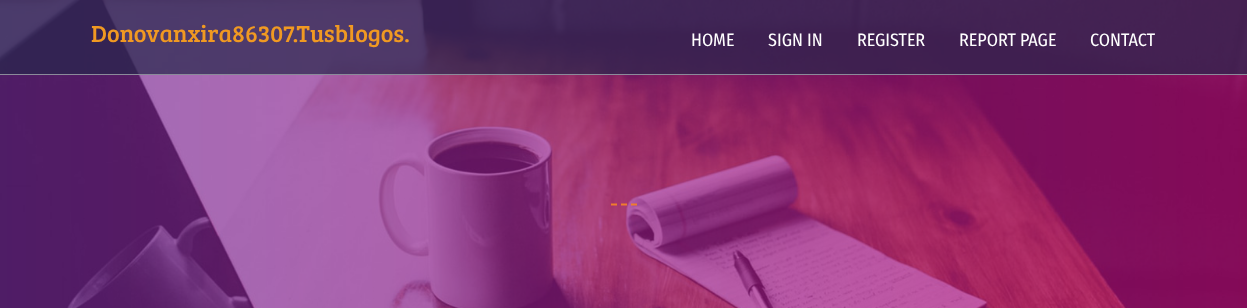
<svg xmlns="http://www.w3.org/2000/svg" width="1247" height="308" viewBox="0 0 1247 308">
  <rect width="100%" height="100%" fill="#ffffff"/>
  <image x="0" y="0" width="1247" height="308" href="img1.png"/>
  <path d="M611 204.5H617M621 204.5H627M631 204.5H637" fill="none" stroke="#ef7c2d" stroke-width="2"/>
  <rect x="0" y="0" width="1247" height="74" fill="#26264b" fill-opacity="0.7"/>
  <rect x="0" y="74" width="1247" height="1" fill="#8b8b9a"/>
  <text x="91" y="42" font-family="Bree Serif" font-size="24" fill="#f09922">Donovanxira86307.Tusblogos.</text>
  <text x="691" y="46" font-family="Fira Sans Condensed" font-size="18" fill="#ffffff">HOME</text>
  <text x="768" y="46" font-family="Fira Sans Condensed" font-size="18" fill="#ffffff">SIGN IN</text>
  <text x="857" y="46" font-family="Fira Sans Condensed" font-size="18" fill="#ffffff">REGISTER</text>
  <text x="959" y="46" font-family="Fira Sans Condensed" font-size="18" fill="#ffffff">REPORT PAGE</text>
  <text x="1090" y="46" font-family="Fira Sans Condensed" font-size="18" fill="#ffffff">CONTACT</text>
</svg>
